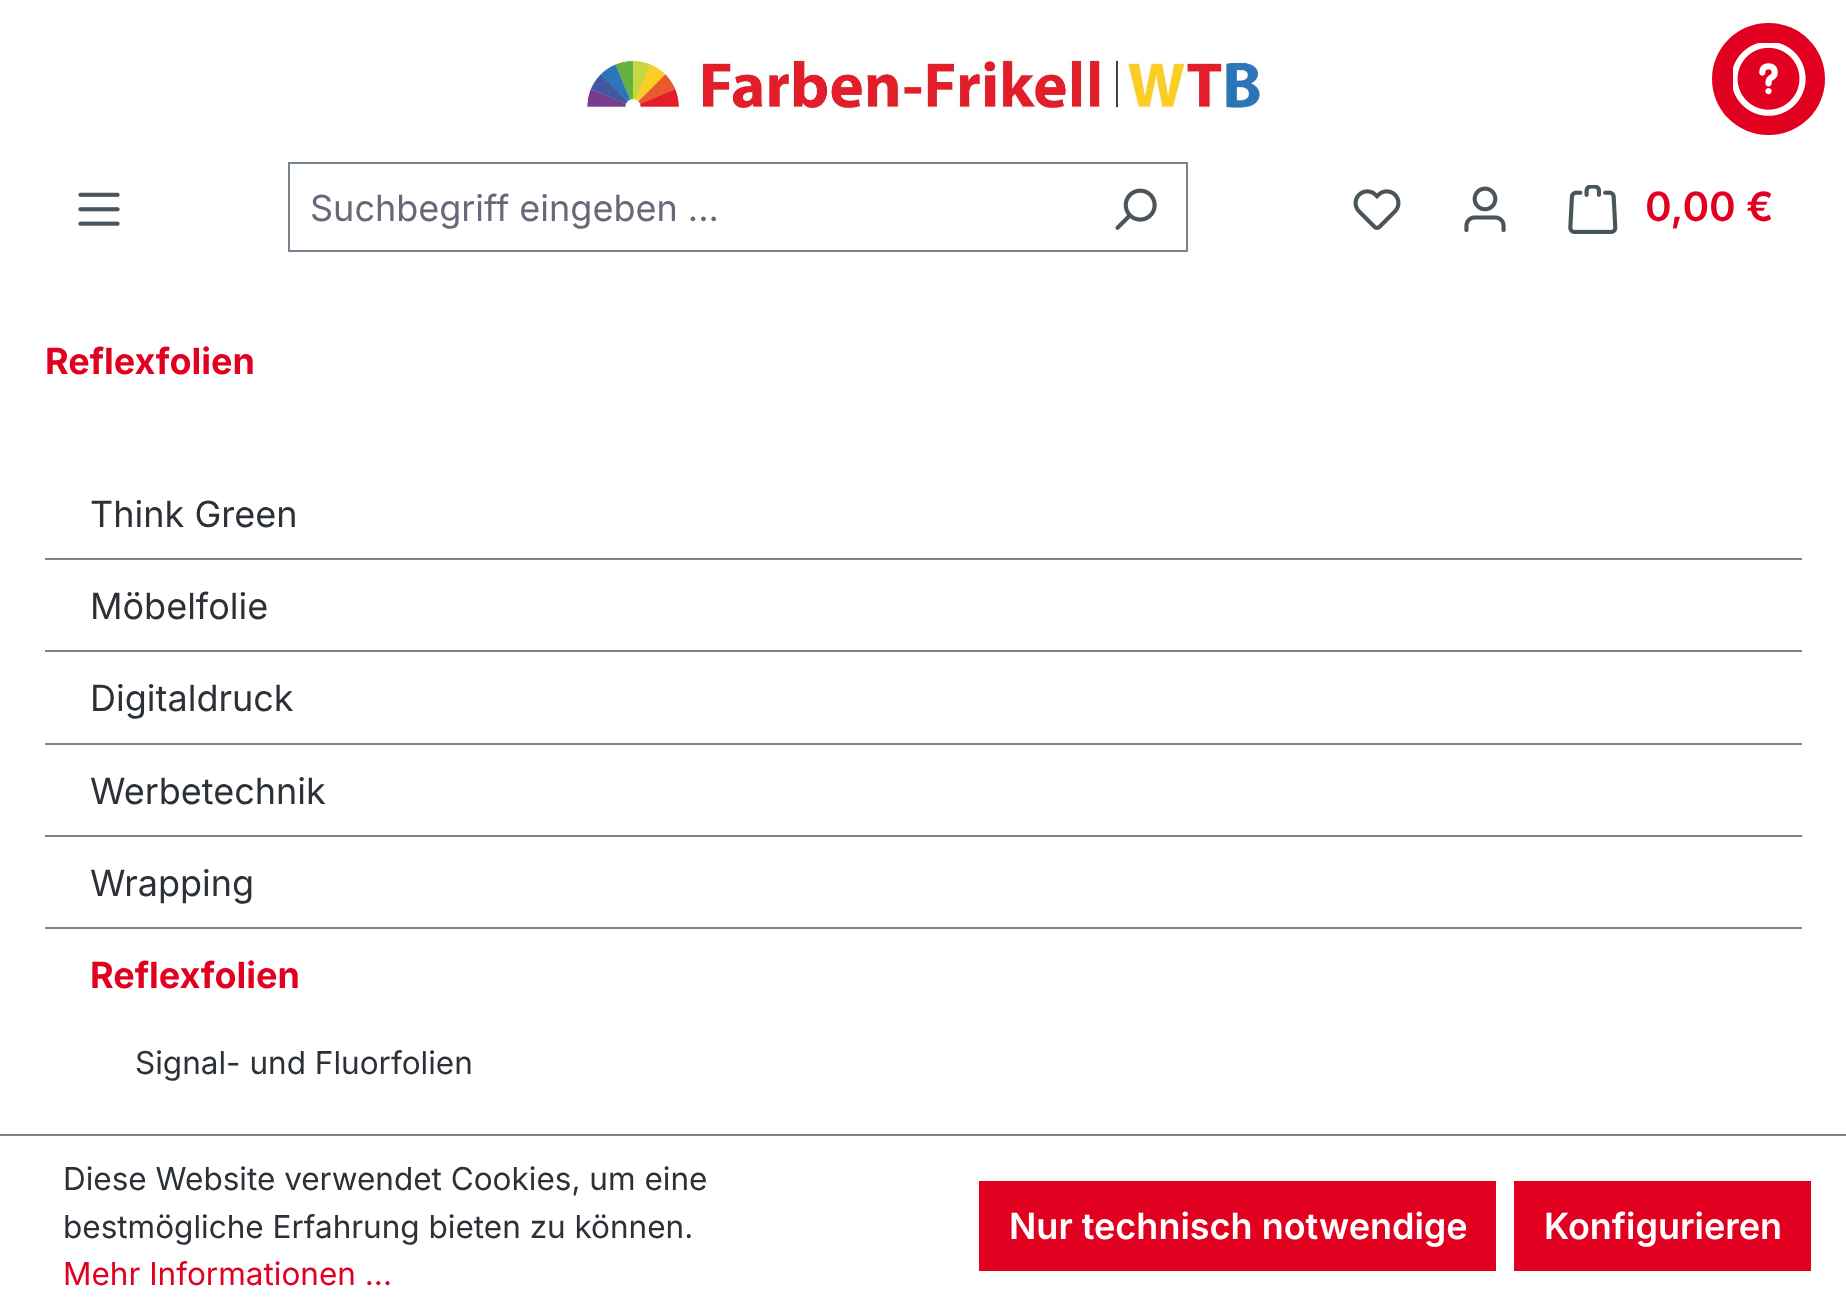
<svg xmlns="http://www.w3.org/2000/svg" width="1846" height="1314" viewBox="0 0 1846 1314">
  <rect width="100%" height="100%" fill="#ffffff"/>
  <rect x="1712" y="23" width="113" height="112" rx="56" fill="#e20020"/>
  <image x="1733" y="43" width="73" height="73" href="img1.png"/>
  <image x="587" y="60" width="673" height="48" href="img2.png"/>
  <image x="78" y="192" width="42" height="34" href="img3.png"/>
  <rect x="288" y="162" width="900" height="2" fill="#798490"/>
  <rect x="288" y="250" width="797" height="2" fill="#798490"/>
  <rect x="288" y="162" width="2" height="90" fill="#798490"/>
  <text x="310" y="221" font-family="Inter" font-size="36" fill="#666977">Suchbegriff eingeben ...</text>
  <rect x="1186" y="162" width="2" height="90" fill="#798490"/>
  <rect x="1082" y="250" width="106" height="2" fill="#798490"/>
  <image x="1115" y="188" width="42" height="42" href="img4.png"/>
  <image x="1353" y="189" width="48" height="41" href="img5.png"/>
  <image x="1464" y="186" width="42" height="47" href="img6.png"/>
  <image x="1568" y="185" width="50" height="49" href="img7.png"/>
  <text x="1645" y="221" font-family="Inter" font-size="40.5" font-weight="600" fill="#e20020">0,00 €</text>
  <text x="45" y="374" font-family="Inter" font-size="36" font-weight="bold" fill="#e20020">Reflexfolien</text>
  <rect x="45" y="558" width="1757" height="2" fill="#798490"/>
  <text x="90" y="527" font-family="Inter" font-size="36" fill="#2b3136">Think Green</text>
  <rect x="45" y="650" width="1757" height="2" fill="#798490"/>
  <text x="90" y="619" font-family="Inter" font-size="36" fill="#2b3136">Möbelfolie</text>
  <rect x="45" y="743" width="1757" height="2" fill="#798490"/>
  <text x="90" y="711" font-family="Inter" font-size="36" fill="#2b3136">Digitaldruck</text>
  <rect x="45" y="835" width="1757" height="2" fill="#798490"/>
  <text x="90" y="804" font-family="Inter" font-size="36" fill="#2b3136">Werbetechnik</text>
  <rect x="45" y="927" width="1757" height="2" fill="#798490"/>
  <text x="90" y="896" font-family="Inter" font-size="36" fill="#2b3136">Wrapping</text>
  <text x="90" y="988" font-family="Inter" font-size="36" font-weight="bold" fill="#e20020">Reflexfolien</text>
  <text x="135" y="1074" font-family="Inter" font-size="31.5" fill="#2b3136">Signal- und Fluorfolien</text>
  <rect x="0" y="1134" width="1846" height="2" fill="#798490"/>
  <text x="63" y="1190" font-family="Inter" font-size="31.5" fill="#2b3136">Diese Website verwendet Cookies, um eine</text>
  <text x="63" y="1238" font-family="Inter" font-size="31.5" fill="#2b3136">bestmögliche Erfahrung bieten zu können.</text>
  <text x="63" y="1285" font-family="Inter" font-size="31.5" fill="#e20020">Mehr Informationen ...</text>
  <rect x="979" y="1181" width="517" height="90" fill="#e20020"/>
  <text x="1009" y="1239" font-family="Inter" font-size="36" font-weight="600" fill="#ffffff">Nur technisch notwendige</text>
  <rect x="1514" y="1181" width="297" height="90" fill="#e20020"/>
  <text x="1544" y="1239" font-family="Inter" font-size="36" font-weight="600" fill="#ffffff">Konfigurieren</text>
</svg>
